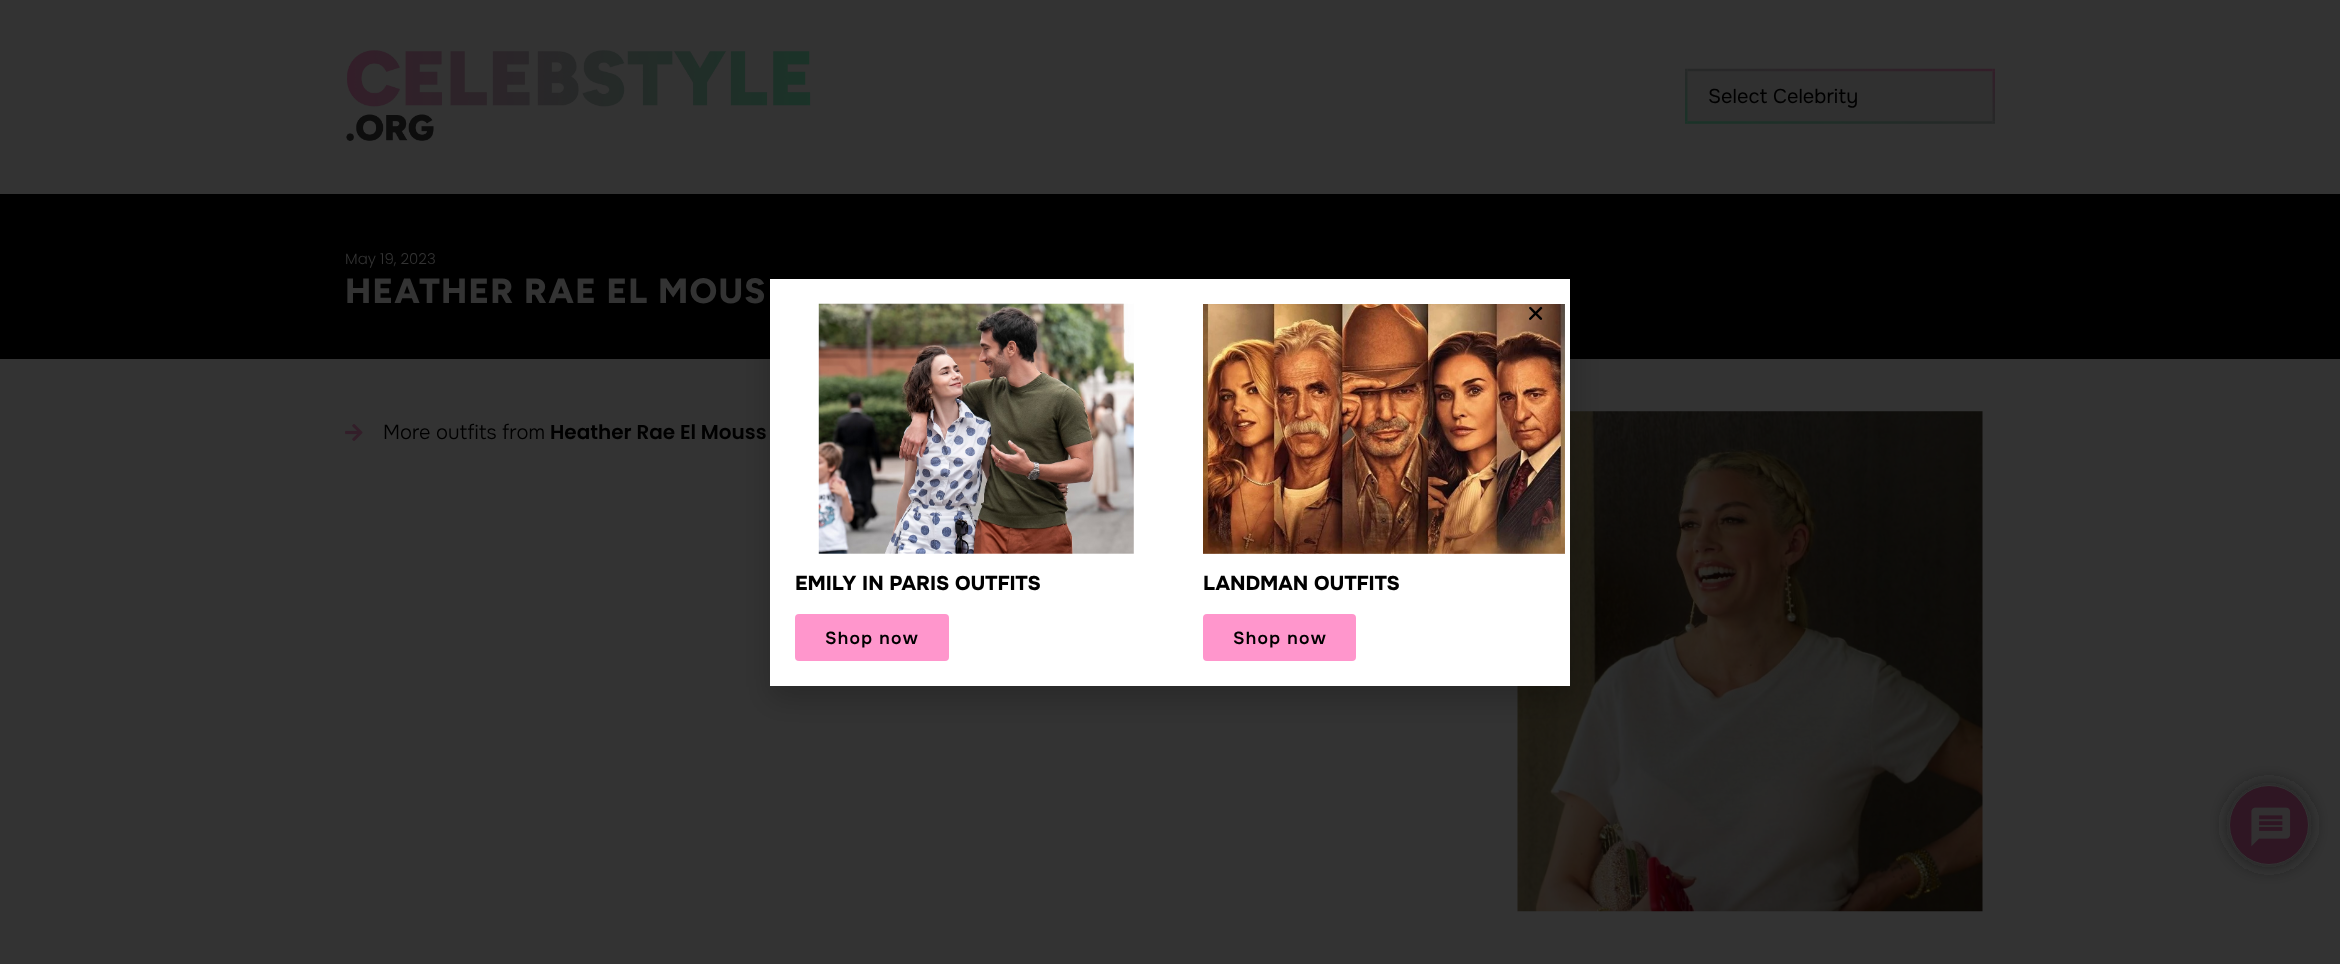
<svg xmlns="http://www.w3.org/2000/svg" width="2340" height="964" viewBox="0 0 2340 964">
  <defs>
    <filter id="blur1" x="-50%" y="-200%" width="200%" height="500%"><feGaussianBlur stdDeviation="14.5"/></filter>
    <filter id="blur2" x="-50%" y="-200%" width="200%" height="500%"><feGaussianBlur stdDeviation="9.5"/></filter>
  </defs>
  <rect width="100%" height="100%" fill="#333333"/>
  <image x="346" y="50" width="465" height="91" href="img1.png"/>
  <rect x="1685" y="69" width="310" height="55" fill="#303030"/>
  <image x="1685" y="68" width="310" height="56" href="img2.png"/>
  <text x="1708" y="103" font-family="Onest" font-size="20" fill="#000000">Select Celebrity</text>
  <rect x="0" y="194" width="2340" height="165" fill="#000000"/>
  <text x="345" y="264" font-family="Poppins" font-size="15" font-weight="300" fill="#333333">May 19, 2023</text>
  <text x="345" y="303" font-family="Figtree" font-size="35" font-weight="800" letter-spacing="1.25" fill="#333333">HEATHER RAE EL MOUS</text>
  <image x="345" y="424" width="18" height="17" href="img3.png"/>
  <text x="383" y="439" font-family="Onest" font-size="20" font-weight="300" fill="#000000">More outfits from</text>
  <text x="550" y="439" font-family="Poppins" font-size="20" font-weight="600" fill="#000000">Heather Rae El Mouss</text>
  <image x="1517" y="411" width="466" height="501" href="img4.png"/>
  <rect x="769" y="285" width="807" height="415" fill="#000000" fill-opacity="0.2" filter="url(#blur1)"/>
  <rect x="770" y="279" width="800" height="407" fill="#ffffff"/>
  <image x="1203" y="304" width="362" height="250" href="img7.png"/>
  <image x="1529" y="306" width="14" height="14" href="img5.png"/>
  <image x="818" y="303" width="316" height="251" href="img6.png"/>
  <text x="795" y="590" font-family="Onest" font-size="20" font-weight="800" fill="#000000">EMILY IN PARIS OUTFITS</text>
  <rect x="795" y="614" width="154" height="47" rx="4" fill="#ff96cc"/>
  <text x="825" y="644" font-family="Onest" font-size="17.5" font-weight="600" letter-spacing="1.25" fill="#000000">Shop now</text>
  <text x="1203" y="590" font-family="Onest" font-size="20" font-weight="800" fill="#000000">LANDMAN OUTFITS</text>
  <rect x="1203" y="614" width="153" height="47" rx="4" fill="#ff96cc"/>
  <text x="1233" y="644" font-family="Onest" font-size="17.5" font-weight="600" letter-spacing="1.25" fill="#000000">Shop now</text>
  <rect x="2229" y="785" width="80" height="80" rx="40" fill="#242424" filter="url(#blur2)"/>
  <circle cx="2269" cy="825" r="39.5" fill="#2f1623" stroke="#333333"/>
  <image x="2251" y="807" width="40" height="40" href="img8.png"/>
</svg>
